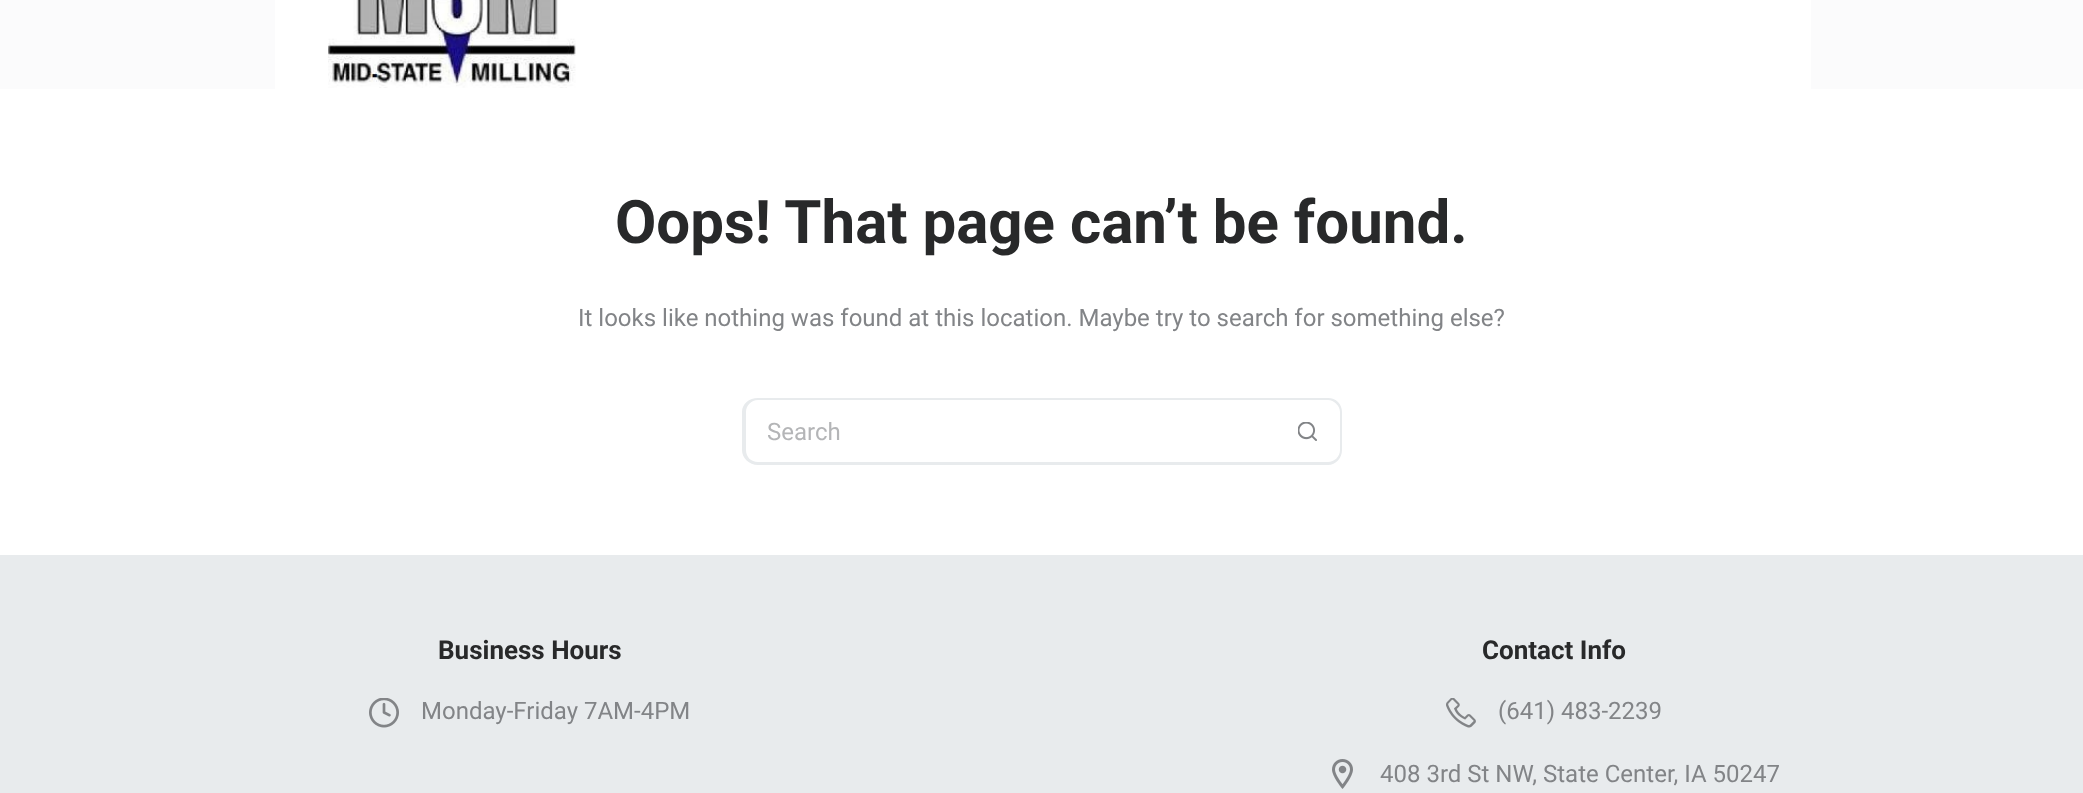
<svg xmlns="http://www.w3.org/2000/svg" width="2083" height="793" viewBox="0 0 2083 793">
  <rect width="100%" height="100%" fill="#ffffff"/>
  <rect x="0" y="0" width="2083" height="89" fill="#fbfbfc"/>
  <rect x="275" y="0" width="1536" height="89" fill="#ffffff"/>
  <image x="328" y="0" width="248" height="88" href="img1.png"/>
  <text x="615" y="243" font-family="Roboto" font-size="60" font-weight="bold" fill="#28292a">Oops! That page can’t be found.</text>
  <text x="578" y="326" font-family="Roboto" font-size="24" fill="#828487">It looks like nothing was found at this location. Maybe try to search for something else?</text>
  <path d="M758 398H1275V465H758C749 465 742 458 742 450V412C742 404 749 398 758 398ZM758 400H1275V462H758C751 462 746 457 746 450V412C746 406 751 400 758 400Z" fill="#e8ebed" fill-rule="evenodd"/>
  <text x="767" y="440" font-family="Roboto" font-size="24" fill="#b4b5b7">Search</text>
  <path d="M1275 398H1328C1336 398 1342 404 1342 412V450C1342 458 1336 465 1328 465H1275ZM1275 400H1328C1334 400 1340 406 1340 412V450C1340 457 1334 462 1328 462H1275Z" fill="#e8ebed" fill-rule="evenodd"/>
  <image x="1298" y="422" width="19" height="19" href="img2.png"/>
  <rect x="0" y="555" width="2083" height="238" fill="#e8ebed"/>
  <text x="438" y="659" font-family="Roboto" font-size="26" font-weight="bold" fill="#28292a">Business Hours</text>
  <image x="369" y="698" width="30" height="30" href="img3.png"/>
  <text x="421" y="719" font-family="Roboto" font-size="24" fill="#828487">Monday-Friday 7AM-4PM</text>
  <text x="1482" y="659" font-family="Roboto" font-size="26" font-weight="bold" fill="#28292a">Contact Info</text>
  <image x="1446" y="698" width="30" height="30" href="img4.png"/>
  <text x="1498" y="719" font-family="Roboto" font-size="24" fill="#828487">(641) 483-2239</text>
  <image x="1332" y="759" width="21" height="30" href="img5.png"/>
  <text x="1380" y="782" font-family="Roboto" font-size="24" fill="#828487">408 3rd St NW, State Center, IA 50247</text>
</svg>
